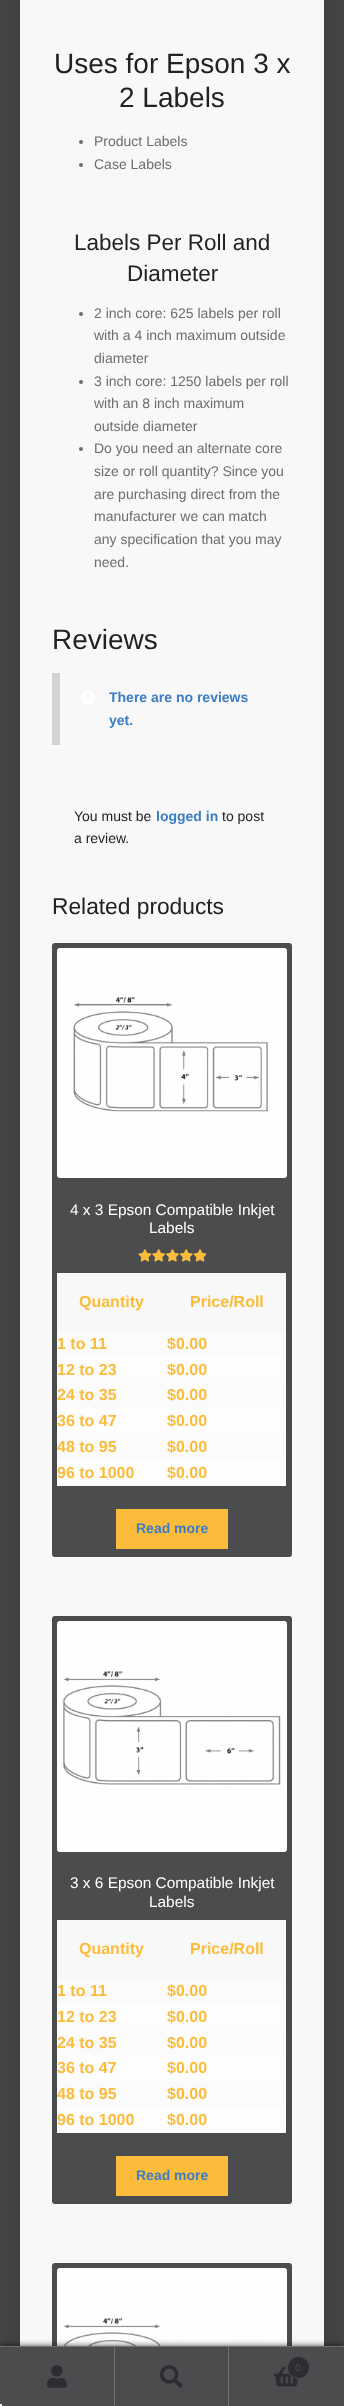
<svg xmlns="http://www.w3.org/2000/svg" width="344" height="2406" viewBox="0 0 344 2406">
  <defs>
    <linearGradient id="g1" gradientUnits="userSpaceOnUse" x1="0" y1="833" x2="344" y2="833"><stop offset="0" stop-color="#444444"/><stop offset="0.5" stop-color="#232323"/><stop offset="1" stop-color="#444444"/></linearGradient>
    <filter id="blur1" x="-50%" y="-200%" width="200%" height="500%"><feGaussianBlur stdDeviation="3"/></filter>
  </defs>
  <rect width="100%" height="100%" fill="#ffffff"/>
  <rect x="0" y="0" width="344" height="2346" fill="url(#g1)"/>
  <rect x="20" y="0" width="304" height="2346" fill="#f8f8f8"/>
  <text x="54" y="73" font-family="Liberation Sans" font-size="28" fill="#222222">Uses for Epson 3 x</text>
  <text x="119" y="107" font-family="Liberation Sans" font-size="28" fill="#222222">2 Labels</text>
  <circle cx="81" cy="142" r="2" fill="#6d6d6d"/>
  <text x="94" y="146" font-family="Liberation Sans" font-size="14" fill="#6d6d6d">Product Labels</text>
  <circle cx="81" cy="165" r="2" fill="#6d6d6d"/>
  <text x="94" y="169" font-family="Liberation Sans" font-size="14" fill="#6d6d6d">Case Labels</text>
  <text x="74" y="250" font-family="Liberation Sans" font-size="22.5" fill="#222222">Labels Per Roll and</text>
  <text x="127" y="281" font-family="Liberation Sans" font-size="22.5" fill="#222222">Diameter</text>
  <circle cx="81" cy="314" r="2" fill="#6d6d6d"/>
  <text x="94" y="318" font-family="Liberation Sans" font-size="14" fill="#6d6d6d">2 inch core: 625 labels per roll</text>
  <text x="94" y="340" font-family="Liberation Sans" font-size="14" fill="#6d6d6d">with a 4 inch maximum outside</text>
  <text x="94" y="363" font-family="Liberation Sans" font-size="14" fill="#6d6d6d">diameter</text>
  <circle cx="81" cy="382" r="2" fill="#6d6d6d"/>
  <text x="94" y="386" font-family="Liberation Sans" font-size="14" fill="#6d6d6d">3 inch core: 1250 labels per roll</text>
  <text x="94" y="408" font-family="Liberation Sans" font-size="14" fill="#6d6d6d">with an 8 inch maximum</text>
  <text x="94" y="431" font-family="Liberation Sans" font-size="14" fill="#6d6d6d">outside diameter</text>
  <circle cx="81" cy="449" r="2" fill="#6d6d6d"/>
  <text x="94" y="453" font-family="Liberation Sans" font-size="14" fill="#6d6d6d">Do you need an alternate core</text>
  <text x="94" y="476" font-family="Liberation Sans" font-size="14" fill="#6d6d6d">size or roll quantity? Since you</text>
  <text x="94" y="499" font-family="Liberation Sans" font-size="14" fill="#6d6d6d">are purchasing direct from the</text>
  <text x="94" y="521" font-family="Liberation Sans" font-size="14" fill="#6d6d6d">manufacturer we can match</text>
  <text x="94" y="544" font-family="Liberation Sans" font-size="14" fill="#6d6d6d">any specification that you may</text>
  <text x="94" y="567" font-family="Liberation Sans" font-size="14" fill="#6d6d6d">need.</text>
  <text x="52" y="649" font-family="Liberation Sans" font-size="28" fill="#222222">Reviews</text>
  <rect x="52" y="673" width="8" height="72" fill="#d3d3d3"/>
  <image x="81" y="691" width="14" height="13" href="img1.png"/>
  <text x="109" y="702" font-family="Liberation Sans" font-size="14" font-weight="bold" fill="#3c7dc4">There are no reviews</text>
  <text x="109" y="725" font-family="Liberation Sans" font-size="14" font-weight="bold" fill="#3c7dc4">yet.</text>
  <text x="74" y="821" font-family="Liberation Sans" font-size="14" fill="#222222">You must be</text>
  <text x="156" y="821" font-family="Liberation Sans" font-size="14" font-weight="bold" fill="#3c7dc4">logged in</text>
  <text x="222" y="821" font-family="Liberation Sans" font-size="14" fill="#222222">to post</text>
  <text x="74" y="843" font-family="Liberation Sans" font-size="14" fill="#222222">a review.</text>
  <text x="52" y="914" font-family="Liberation Sans" font-size="22.75" fill="#222222">Related products</text>
  <rect x="54.5" y="945.5" width="235" height="609" rx="0.5" fill="#4b4c4e" stroke="#4b4c4e" stroke-width="5"/>
  <image x="57" y="948" width="230" height="230" href="img2.png"/>
  <text x="70" y="1215" font-family="Liberation Sans" font-size="15.4" fill="#ffffff">4 x 3 Epson Compatible Inkjet</text>
  <text x="149" y="1233" font-family="Liberation Sans" font-size="15.4" fill="#ffffff">Labels</text>
  <image x="138" y="1249" width="68" height="13" href="img3.png"/>
  <image x="138" y="1249" width="68" height="13" href="img4.png"/>
  <rect x="57" y="1273" width="229" height="58" fill="#f8f8f8"/>
  <text x="79" y="1307" font-family="Liberation Sans" font-size="16" font-weight="bold" fill="#fbbc3b">Quantity</text>
  <text x="190" y="1307" font-family="Liberation Sans" font-size="16" font-weight="bold" fill="#fbbc3b">Price/Roll</text>
  <rect x="57" y="1331" width="229" height="26" fill="#fbfbfb"/>
  <text x="57" y="1349" font-family="Liberation Sans" font-size="16" font-weight="bold" fill="#fbbc3b">1 to 11</text>
  <text x="167" y="1349" font-family="Liberation Sans" font-size="16" font-weight="bold" fill="#fbbc3b">$0.00</text>
  <rect x="57" y="1357" width="229" height="25" fill="#fdfdfd"/>
  <text x="57" y="1375" font-family="Liberation Sans" font-size="16" font-weight="bold" fill="#fbbc3b">12 to 23</text>
  <text x="167" y="1375" font-family="Liberation Sans" font-size="16" font-weight="bold" fill="#fbbc3b">$0.00</text>
  <rect x="57" y="1382" width="229" height="26" fill="#fbfbfb"/>
  <text x="57" y="1400" font-family="Liberation Sans" font-size="16" font-weight="bold" fill="#fbbc3b">24 to 35</text>
  <text x="167" y="1400" font-family="Liberation Sans" font-size="16" font-weight="bold" fill="#fbbc3b">$0.00</text>
  <rect x="57" y="1408" width="229" height="26" fill="#fdfdfd"/>
  <text x="57" y="1426" font-family="Liberation Sans" font-size="16" font-weight="bold" fill="#fbbc3b">36 to 47</text>
  <text x="167" y="1426" font-family="Liberation Sans" font-size="16" font-weight="bold" fill="#fbbc3b">$0.00</text>
  <rect x="57" y="1434" width="229" height="26" fill="#fbfbfb"/>
  <text x="57" y="1452" font-family="Liberation Sans" font-size="16" font-weight="bold" fill="#fbbc3b">48 to 95</text>
  <text x="167" y="1452" font-family="Liberation Sans" font-size="16" font-weight="bold" fill="#fbbc3b">$0.00</text>
  <rect x="57" y="1460" width="229" height="26" fill="#fdfdfd"/>
  <text x="57" y="1478" font-family="Liberation Sans" font-size="16" font-weight="bold" fill="#fbbc3b">96 to 1000</text>
  <text x="167" y="1478" font-family="Liberation Sans" font-size="16" font-weight="bold" fill="#fbbc3b">$0.00</text>
  <rect x="116" y="1509" width="112" height="40" fill="#fbbc3b"/>
  <text x="136" y="1533" font-family="Liberation Sans" font-size="14" font-weight="bold" fill="#3c7dc4">Read more</text>
  <rect x="54.5" y="1618.5" width="235" height="583" rx="0.5" fill="#4b4c4e" stroke="#4b4c4e" stroke-width="5"/>
  <image x="57" y="1621" width="230" height="231" href="img5.png"/>
  <text x="70" y="1888" font-family="Liberation Sans" font-size="15.4" fill="#ffffff">3 x 6 Epson Compatible Inkjet</text>
  <text x="149" y="1907" font-family="Liberation Sans" font-size="15.4" fill="#ffffff">Labels</text>
  <rect x="57" y="1920" width="229" height="58" fill="#f8f8f8"/>
  <text x="79" y="1954" font-family="Liberation Sans" font-size="16" font-weight="bold" fill="#fbbc3b">Quantity</text>
  <text x="190" y="1954" font-family="Liberation Sans" font-size="16" font-weight="bold" fill="#fbbc3b">Price/Roll</text>
  <rect x="57" y="1978" width="229" height="26" fill="#fbfbfb"/>
  <text x="57" y="1996" font-family="Liberation Sans" font-size="16" font-weight="bold" fill="#fbbc3b">1 to 11</text>
  <text x="167" y="1996" font-family="Liberation Sans" font-size="16" font-weight="bold" fill="#fbbc3b">$0.00</text>
  <rect x="57" y="2004" width="229" height="26" fill="#fdfdfd"/>
  <text x="57" y="2022" font-family="Liberation Sans" font-size="16" font-weight="bold" fill="#fbbc3b">12 to 23</text>
  <text x="167" y="2022" font-family="Liberation Sans" font-size="16" font-weight="bold" fill="#fbbc3b">$0.00</text>
  <rect x="57" y="2030" width="229" height="25" fill="#fbfbfb"/>
  <text x="57" y="2048" font-family="Liberation Sans" font-size="16" font-weight="bold" fill="#fbbc3b">24 to 35</text>
  <text x="167" y="2048" font-family="Liberation Sans" font-size="16" font-weight="bold" fill="#fbbc3b">$0.00</text>
  <rect x="57" y="2055" width="229" height="26" fill="#fdfdfd"/>
  <text x="57" y="2073" font-family="Liberation Sans" font-size="16" font-weight="bold" fill="#fbbc3b">36 to 47</text>
  <text x="167" y="2073" font-family="Liberation Sans" font-size="16" font-weight="bold" fill="#fbbc3b">$0.00</text>
  <rect x="57" y="2081" width="229" height="26" fill="#fbfbfb"/>
  <text x="57" y="2099" font-family="Liberation Sans" font-size="16" font-weight="bold" fill="#fbbc3b">48 to 95</text>
  <text x="167" y="2099" font-family="Liberation Sans" font-size="16" font-weight="bold" fill="#fbbc3b">$0.00</text>
  <rect x="57" y="2107" width="229" height="26" fill="#fdfdfd"/>
  <text x="57" y="2125" font-family="Liberation Sans" font-size="16" font-weight="bold" fill="#fbbc3b">96 to 1000</text>
  <text x="167" y="2125" font-family="Liberation Sans" font-size="16" font-weight="bold" fill="#fbbc3b">$0.00</text>
  <rect x="116" y="2156" width="112" height="40" fill="#fbbc3b"/>
  <text x="136" y="2180" font-family="Liberation Sans" font-size="14" font-weight="bold" fill="#3c7dc4">Read more</text>
  <rect x="54.5" y="2265.5" width="235" height="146" rx="0.5" fill="#4b4c4e" stroke="#4b4c4e" stroke-width="5"/>
  <image x="57" y="2268" width="230" height="78" href="img6.png"/>
  <rect x="0" y="2346" width="344" height="60" fill="#000000" fill-opacity="0.7" filter="url(#blur1)"/>
  <rect x="0" y="2346" width="344" height="1" fill="#6f7071"/>
  <rect x="0" y="2347" width="114" height="59" fill="#4b4c4e"/>
  <rect x="114" y="2347" width="1" height="59" fill="#6f7071"/>
  <image x="47" y="2365" width="20" height="23" href="img7.png"/>
  <rect x="115" y="2347" width="113" height="59" fill="#4b4c4e"/>
  <rect x="228" y="2347" width="1" height="59" fill="#6f7071"/>
  <image x="160" y="2365" width="23" height="23" href="img8.png"/>
  <rect x="229" y="2347" width="115" height="59" fill="#4b4c4e"/>
  <image x="274" y="2366" width="24" height="21" href="img9.png"/>
  <circle cx="298.5" cy="2367.5" r="11" fill="#2c2d33" stroke="#4b4c4e"/>
  <text x="295" y="2371" font-family="Liberation Sans" font-size="10" fill="#4b4c4e">0</text>
  <rect x="0" y="2404" width="2" height="2" fill="#f5f5f5"/>
</svg>
